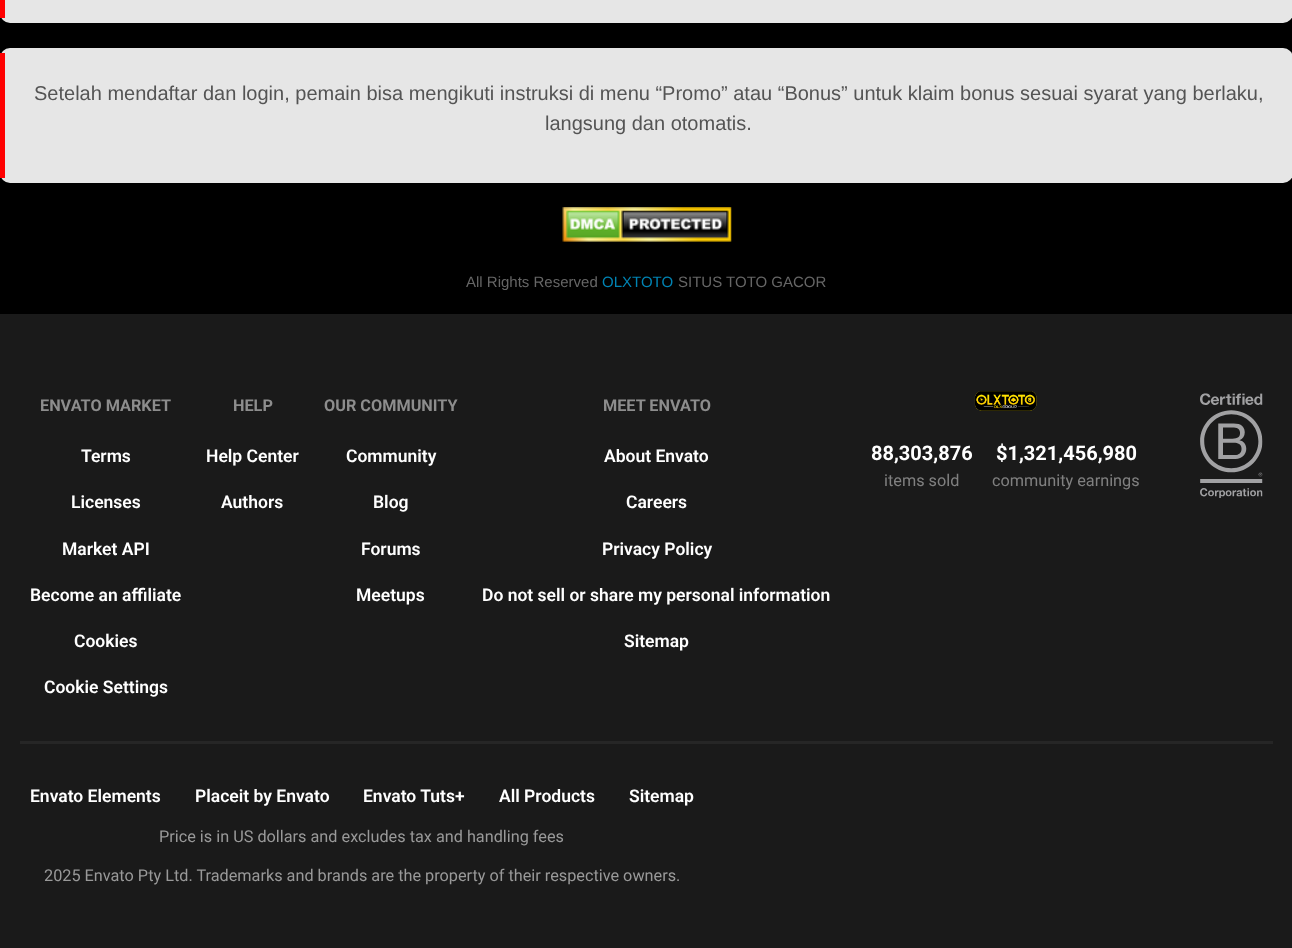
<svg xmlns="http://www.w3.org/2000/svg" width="1292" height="948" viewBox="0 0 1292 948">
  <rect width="100%" height="100%" fill="#000000"/>
  <rect x="0" y="-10" width="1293" height="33" rx="10" fill="#e6e6e6"/>
  <rect x="0" y="0" width="5" height="18" fill="#ff0000"/>
  <rect x="0" y="48" width="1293" height="135" rx="10" fill="#e6e6e6"/>
  <rect x="0" y="53" width="5" height="125" fill="#ff0000"/>
  <text x="34" y="100" font-family="Liberation Sans" font-size="20" fill="#545454">Setelah mendaftar dan login, pemain bisa mengikuti instruksi di menu “Promo” atau “Bonus” untuk klaim bonus sesuai syarat yang berlaku,</text>
  <text x="545" y="130" font-family="Liberation Sans" font-size="20" fill="#545454">langsung dan otomatis.</text>
  <image x="562" y="207" width="170" height="35" href="img1.png"/>
  <text x="466" y="287" font-family="Liberation Sans" font-size="15" fill="#666666">All Rights Reserved</text>
  <text x="602" y="287" font-family="Liberation Sans" font-size="15" fill="#0084b4">OLXTOTO</text>
  <text x="678" y="287" font-family="Liberation Sans" font-size="15" fill="#666666">SITUS TOTO GACOR</text>
  <rect x="0" y="314" width="1292" height="634" fill="#1a1a1a"/>
  <text x="40" y="411" font-family="Roboto" font-size="16.25" font-weight="bold" fill="#8d8d8d">ENVATO MARKET</text>
  <text x="81" y="462" font-family="Roboto" font-size="17.5" font-weight="600" fill="#ffffff">Terms</text>
  <text x="71" y="508" font-family="Roboto" font-size="17.5" font-weight="600" fill="#ffffff">Licenses</text>
  <text x="62" y="555" font-family="Roboto" font-size="17.5" font-weight="600" fill="#ffffff">Market API</text>
  <text x="30" y="601" font-family="Roboto" font-size="17.5" font-weight="600" fill="#ffffff">Become an affiliate</text>
  <text x="74" y="647" font-family="Roboto" font-size="17.5" font-weight="600" fill="#ffffff">Cookies</text>
  <text x="44" y="693" font-family="Roboto" font-size="17.5" font-weight="600" fill="#ffffff">Cookie Settings</text>
  <text x="233" y="411" font-family="Roboto" font-size="16.25" font-weight="bold" fill="#8d8d8d">HELP</text>
  <text x="206" y="462" font-family="Roboto" font-size="17.5" font-weight="600" fill="#ffffff">Help Center</text>
  <text x="221" y="508" font-family="Roboto" font-size="17.5" font-weight="600" fill="#ffffff">Authors</text>
  <text x="324" y="411" font-family="Roboto" font-size="16.25" font-weight="bold" fill="#8d8d8d">OUR COMMUNITY</text>
  <text x="346" y="462" font-family="Roboto" font-size="17.5" font-weight="600" fill="#ffffff">Community</text>
  <text x="373" y="508" font-family="Roboto" font-size="17.5" font-weight="600" fill="#ffffff">Blog</text>
  <text x="361" y="555" font-family="Roboto" font-size="17.5" font-weight="600" fill="#ffffff">Forums</text>
  <text x="356" y="601" font-family="Roboto" font-size="17.5" font-weight="600" fill="#ffffff">Meetups</text>
  <text x="603" y="411" font-family="Roboto" font-size="16.25" font-weight="bold" fill="#8d8d8d">MEET ENVATO</text>
  <text x="604" y="462" font-family="Roboto" font-size="17.5" font-weight="600" fill="#ffffff">About Envato</text>
  <text x="626" y="508" font-family="Roboto" font-size="17.5" font-weight="600" fill="#ffffff">Careers</text>
  <text x="602" y="555" font-family="Roboto" font-size="17.5" font-weight="600" fill="#ffffff">Privacy Policy</text>
  <text x="482" y="601" font-family="Roboto" font-size="17.5" font-weight="600" fill="#ffffff">Do not sell or share my personal information</text>
  <text x="624" y="647" font-family="Roboto" font-size="17.5" font-weight="600" fill="#ffffff">Sitemap</text>
  <image x="974" y="391" width="63" height="20" href="img2.png"/>
  <text x="871" y="460" font-family="Roboto" font-size="20" font-weight="bold" fill="#ffffff">88,303,876</text>
  <text x="884" y="486" font-family="Roboto" font-size="16.25" fill="#808080">items sold</text>
  <text x="996" y="460" font-family="Roboto" font-size="20" font-weight="bold" fill="#ffffff">$1,321,456,980</text>
  <text x="992" y="486" font-family="Roboto" font-size="16.25" fill="#808080">community earnings</text>
  <image x="1200" y="393" width="63" height="105" href="img3.png"/>
  <rect x="20" y="741" width="1253" height="3" fill="#262626"/>
  <text x="30" y="802" font-family="Roboto" font-size="17.5" font-weight="600" fill="#ffffff">Envato Elements</text>
  <text x="195" y="802" font-family="Roboto" font-size="17.5" font-weight="600" fill="#ffffff">Placeit by Envato</text>
  <text x="363" y="802" font-family="Roboto" font-size="17.5" font-weight="600" fill="#ffffff">Envato Tuts+</text>
  <text x="499" y="802" font-family="Roboto" font-size="17.5" font-weight="600" fill="#ffffff">All Products</text>
  <text x="629" y="802" font-family="Roboto" font-size="17.5" font-weight="600" fill="#ffffff">Sitemap</text>
  <text x="159" y="842" font-family="Roboto" font-size="16.25" fill="#999999">Price is in US dollars and excludes tax and handling fees</text>
  <text x="44" y="881" font-family="Roboto" font-size="16.25" fill="#999999">2025 Envato Pty Ltd. Trademarks and brands are the property of their respective owners.</text>
</svg>
